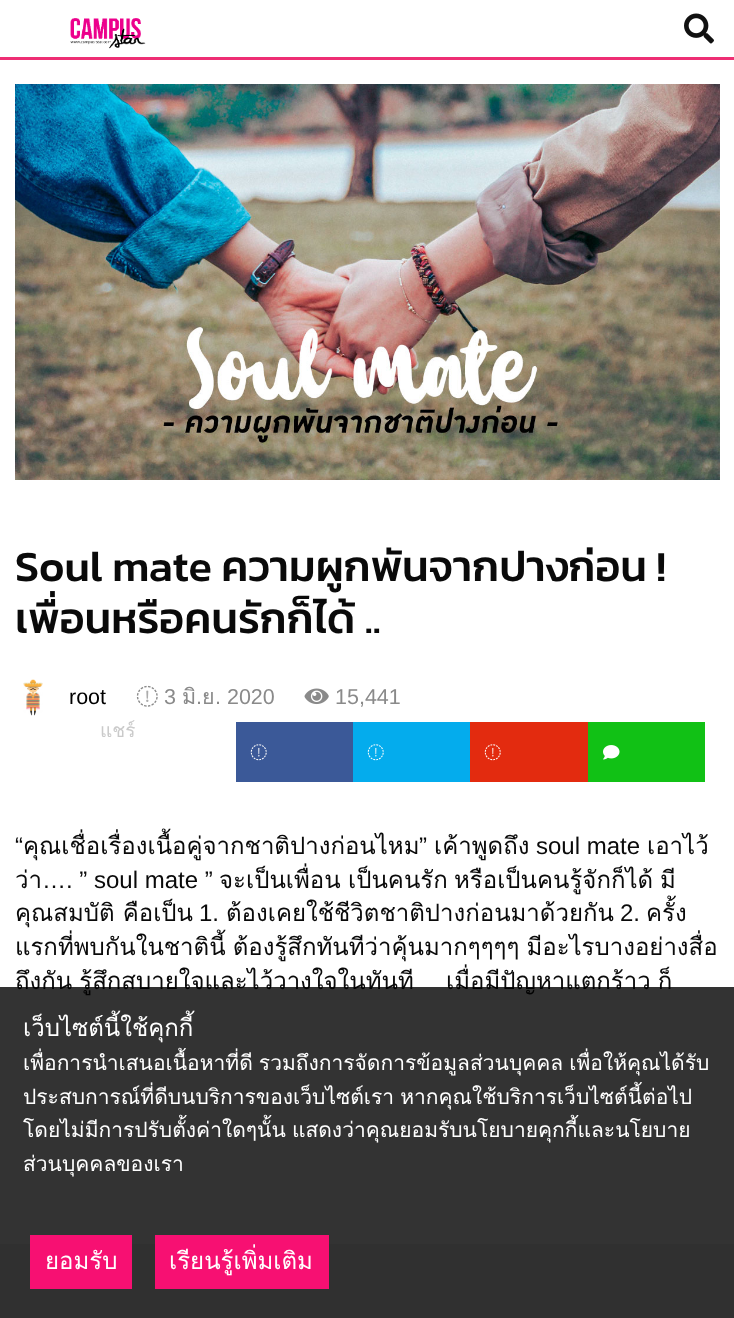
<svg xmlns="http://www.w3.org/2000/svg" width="734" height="1318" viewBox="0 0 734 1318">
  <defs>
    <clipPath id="clip1"><rect x="15" y="528" width="705" height="128"/></clipPath>
  </defs>
  <rect width="100%" height="100%" fill="#ffffff"/>
  <rect x="0" y="57" width="734" height="3" fill="#ee2f74"/>
  <image x="70" y="18" width="76" height="31" href="img1.png"/>
  <image x="684" y="13" width="30" height="31" href="img2.png"/>
  <image x="15" y="84" width="705" height="396" href="img3.png"/>
  <text x="15" y="581" font-family="Kanit" font-size="43.25" font-weight="500" fill="#0a0a0a">Soul mate ความผูกพันจากปางก่อน !</text>
  <g clip-path="url(#clip1)">
    <text x="15" y="633" font-family="Kanit" font-size="43.25" font-weight="500" fill="#0a0a0a">เพื่อนหรือคนรักก็ได้ ..</text>
  </g>
  <image x="23" y="679" width="20" height="37" href="img4.png"/>
  <text x="69" y="704" font-family="Liberation Sans" font-size="21.5" fill="#000000">root</text>
  <image x="136" y="685" width="22" height="22" href="img5.png"/>
  <text x="164" y="704" font-family="Liberation Sans" font-size="21.5" fill="#8a8a8a">3</text>
  <text x="182" y="704" font-family="Loma" font-size="21.5" fill="#8a8a8a">มิ</text>
  <text x="196" y="704" font-family="Liberation Sans" font-size="21.5" fill="#8a8a8a">.</text>
  <text x="202" y="704" font-family="Loma" font-size="21.5" fill="#8a8a8a">ย</text>
  <text x="215" y="704" font-family="Liberation Sans" font-size="21.5" fill="#8a8a8a">. 2020</text>
  <image x="304" y="688" width="25" height="17" href="img6.png"/>
  <text x="335" y="704" font-family="Liberation Sans" font-size="21.5" fill="#8a8a8a">15,441</text>
  <text x="100" y="737" font-family="Loma" font-size="19" fill="#cacaca">แชร์</text>
  <rect x="236" y="722" width="117" height="60" fill="#3b5998"/>
  <image x="250" y="744" width="17" height="17" href="img7.png"/>
  <rect x="353" y="722" width="117" height="60" fill="#04aced"/>
  <image x="367" y="744" width="17" height="17" href="img8.png"/>
  <rect x="470" y="722" width="118" height="60" fill="#e32b0f"/>
  <image x="484" y="744" width="17" height="17" href="img9.png"/>
  <rect x="588" y="722" width="117" height="60" fill="#11c115"/>
  <image x="603" y="745" width="17" height="15" href="img10.png"/>
  <text x="15" y="854" font-family="Liberation Sans" font-size="24" fill="#0a0a0a">“</text>
  <text x="23" y="854" font-family="Loma" font-size="24" fill="#0a0a0a">คุณเชื่อเรื่องเนื้อคู่จากชาติปางก่อนไหม</text>
  <text x="434" y="854" font-family="Loma" font-size="24" fill="#0a0a0a">เค้าพูดถึง</text>
  <text x="536" y="854" font-family="Liberation Sans" font-size="24" fill="#0a0a0a">soul mate</text>
  <text x="647" y="854" font-family="Loma" font-size="24" fill="#0a0a0a">เอาไว้</text>
  <text x="419" y="854" font-family="Liberation Sans" font-size="24" fill="#0a0a0a">”</text>
  <text x="15" y="888" font-family="Loma" font-size="24" fill="#0a0a0a">ว่า</text>
  <text x="42" y="888" font-family="Liberation Sans" font-size="24" fill="#0a0a0a">…. ” soul mate ”</text>
  <text x="219" y="888" font-family="Loma" font-size="24" fill="#0a0a0a">จะเป็นเพื่อน</text>
  <text x="348" y="888" font-family="Loma" font-size="24" fill="#0a0a0a">เป็นคนรัก</text>
  <text x="454" y="888" font-family="Loma" font-size="24" fill="#0a0a0a">หรือเป็นคนรู้จักก็ได้</text>
  <text x="660" y="888" font-family="Loma" font-size="24" fill="#0a0a0a">มี</text>
  <text x="15" y="921" font-family="Loma" font-size="24" fill="#0a0a0a">คุณสมบัติ คือเป็น</text>
  <text x="199" y="921" font-family="Liberation Sans" font-size="24" fill="#0a0a0a">1.</text>
  <text x="226" y="921" font-family="Loma" font-size="24" fill="#0a0a0a">ต้องเคยใช้ชีวิตชาติปางก่อนมาด้วยกัน</text>
  <text x="620" y="921" font-family="Liberation Sans" font-size="24" fill="#0a0a0a">2.</text>
  <text x="646" y="921" font-family="Loma" font-size="24" fill="#0a0a0a">ครั้ง</text>
  <text x="15" y="955" word-spacing="-1" font-family="Loma" font-size="24" fill="#0a0a0a">แรกที่พบกันในชาตินี้ ต้องรู้สึกทันทีว่าคุ้นมากๆๆๆๆ มีอะไรบางอย่างสื่อ</text>
  <text x="15" y="989" word-spacing="-1" font-family="Loma" font-size="24" fill="#0a0a0a">ถึงกัน รู้สึกสบายใจและไว้วางใจในทันที</text>
  <text x="446" y="989" word-spacing="-1" font-family="Loma" font-size="24" fill="#0a0a0a">เมื่อมีปัญหาแตกร้าว ก็</text>
  <rect x="0" y="1244" width="734" height="74" fill="#f0eeee"/>
  <rect x="0" y="987" width="734" height="331" fill="#000000" fill-opacity="0.8"/>
  <text x="23" y="1036" font-family="Loma" font-size="24" fill="#ffffff">เว็บไซต์นี้ใช้คุกกี้</text>
  <text x="23" y="1070" word-spacing="-1" font-family="Loma" font-size="21" fill="#ffffff">เพื่อการนำเสนอเนื้อหาที่ดี รวมถึงการจัดการข้อมูลส่วนบุคคล เพื่อให้คุณได้รับ</text>
  <text x="23" y="1104" word-spacing="-1" font-family="Loma" font-size="21" fill="#ffffff">ประสบการณ์ที่ดีบนบริการของเว็บไซต์เรา หากคุณใช้บริการเว็บไซต์นี้ต่อไป</text>
  <text x="23" y="1137" word-spacing="-1" font-family="Loma" font-size="21" fill="#ffffff">โดยไม่มีการปรับตั้งค่าใดๆนั้น แสดงว่าคุณยอมรับนโยบายคุกกี้และนโยบาย</text>
  <text x="23" y="1171" font-family="Loma" font-size="21" fill="#ffffff">ส่วนบุคคลของเรา</text>
  <rect x="30" y="1235" width="102" height="54" fill="#f71072"/>
  <text x="45" y="1269" font-family="Loma" font-size="24" fill="#ffffff">ยอมรับ</text>
  <rect x="155" y="1235" width="174" height="54" fill="#f71072"/>
  <text x="169" y="1269" font-family="Loma" font-size="24" fill="#ffffff">เรียนรู้เพิ่มเติม</text>
</svg>
